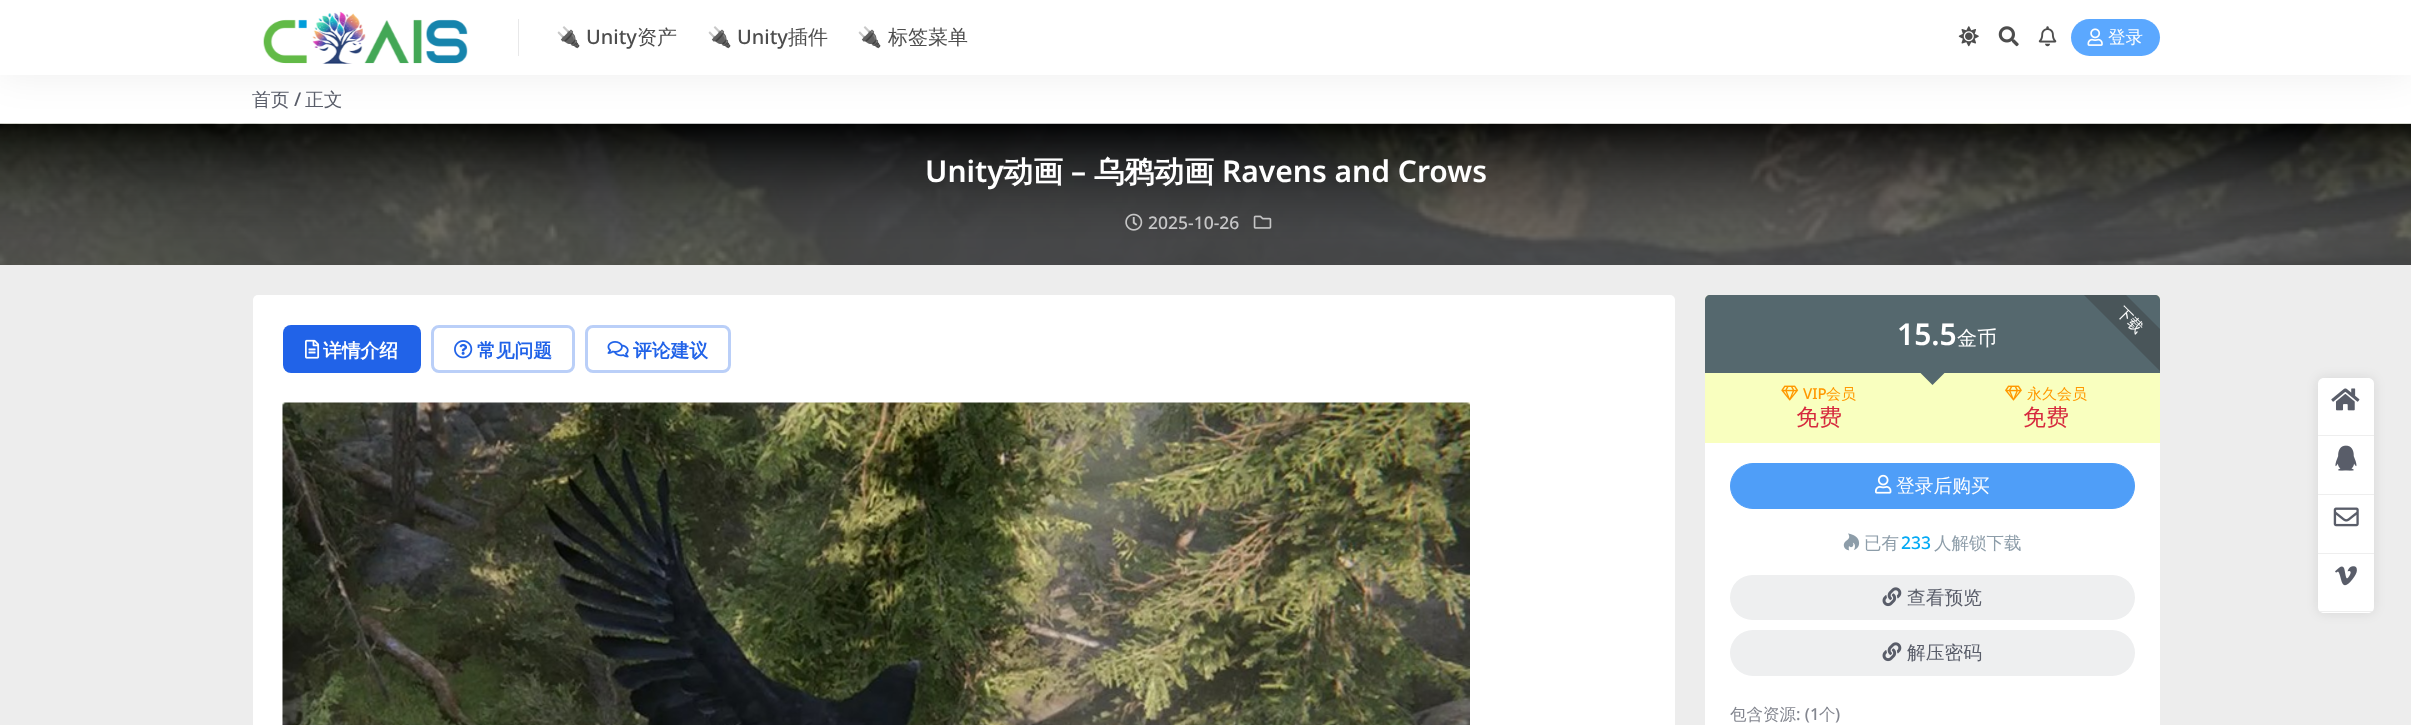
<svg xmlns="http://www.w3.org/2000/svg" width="2411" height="725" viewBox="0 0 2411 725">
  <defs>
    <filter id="blur1" x="-50%" y="-200%" width="200%" height="500%"><feGaussianBlur stdDeviation="19"/></filter>
    <filter id="blur2" x="-50%" y="-200%" width="200%" height="500%"><feGaussianBlur stdDeviation="6"/></filter>
    <clipPath id="clip1"><rect x="2318" y="378" width="56" height="235" rx="6"/></clipPath>
  </defs>
  <rect width="100%" height="100%" fill="#ededed"/>
  <rect x="0" y="75" width="2411" height="49" fill="#ffffff"/>
  <image x="0" y="123" width="2411" height="142" href="img6.png"/>
  <rect x="0" y="0" width="2411" height="75" fill="#000000" fill-opacity="0.07" filter="url(#blur1)"/>
  <rect x="0" y="0" width="2411" height="75" fill="#ffffff"/>
  <image x="263" y="11" width="205" height="53" href="img1.png"/>
  <rect x="518" y="19" width="1" height="37" fill="#e8e8e9"/>
  <text x="556" y="44" font-family="Noto Color Emoji" font-size="20" fill="#4d4d4d">🔌</text>
  <text x="586" y="44" font-family="Noto Sans" font-size="20" font-weight="500" fill="#4d4d4d">Unity</text>
  <text x="637" y="44" font-family="WenQuanYi Zen Hei" font-size="20" font-weight="500" fill="#4d4d4d">资产</text>
  <text x="707" y="44" font-family="Noto Color Emoji" font-size="20" fill="#4d4d4d">🔌</text>
  <text x="737" y="44" font-family="Noto Sans" font-size="20" font-weight="500" fill="#4d4d4d">Unity</text>
  <text x="788" y="44" font-family="WenQuanYi Zen Hei" font-size="20" font-weight="500" fill="#4d4d4d">插件</text>
  <text x="857" y="44" font-family="Noto Color Emoji" font-size="20" fill="#4d4d4d">🔌</text>
  <text x="888" y="44" font-family="WenQuanYi Zen Hei" font-size="20" font-weight="500" fill="#4d4d4d">标签菜单</text>
  <image x="1958" y="26" width="21" height="21" href="img2.png"/>
  <image x="1998" y="26" width="21" height="21" href="img3.png"/>
  <image x="2038" y="26" width="19" height="21" href="img4.png"/>
  <rect x="2071" y="19" width="89" height="37" rx="18.5" fill="#5ba8ff"/>
  <image x="2087" y="28" width="16" height="18" href="img5.png"/>
  <text x="2108" y="43" font-family="WenQuanYi Zen Hei" font-size="17.5" font-weight="500" fill="#ffffff">登录</text>
  <text x="252" y="106" font-family="WenQuanYi Zen Hei" font-size="18.75" font-weight="500" fill="#595d69">首页</text>
  <text x="294" y="106" font-family="Noto Sans" font-size="18.75" font-weight="500" fill="#595d69">/</text>
  <text x="305" y="106" font-family="WenQuanYi Zen Hei" font-size="18.75" font-weight="500" fill="#595d69">正文</text>
  <text x="925" y="182" font-family="Noto Sans" font-size="30" font-weight="600" fill="#ffffff">Unity</text>
  <text x="1003" y="182" font-family="WenQuanYi Zen Hei" font-size="30" font-weight="bold" fill="#ffffff">动画</text>
  <text x="1071" y="182" font-family="Noto Sans" font-size="30" font-weight="600" fill="#ffffff">–</text>
  <text x="1094" y="182" font-family="WenQuanYi Zen Hei" font-size="30" font-weight="bold" fill="#ffffff">乌鸦动画</text>
  <text x="1222" y="182" font-family="Noto Sans" font-size="30" font-weight="600" fill="#ffffff">Ravens and Crows</text>
  <image x="1125" y="213" width="18" height="18" href="img7.png"/>
  <text x="1148" y="229" font-family="Noto Sans" font-size="17.5" font-weight="500" fill="#c6c6c7">2025-10-26</text>
  <image x="1253" y="215" width="19" height="14" href="img8.png"/>
  <rect x="253" y="295" width="1422" height="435" rx="5" fill="#ffffff"/>
  <rect x="283" y="325" width="138" height="48" rx="8" fill="#2163e8"/>
  <image x="305" y="339" width="15" height="20" href="img9.png"/>
  <text x="323" y="357" font-family="WenQuanYi Zen Hei" font-size="18.75" font-weight="bold" fill="#ffffff">详情介绍</text>
  <rect x="432.5" y="326.5" width="141" height="45" rx="6.5" fill="none" stroke="#bacff8" stroke-width="3"/>
  <image x="454" y="340" width="19" height="19" href="img10.png"/>
  <text x="477" y="357" font-family="WenQuanYi Zen Hei" font-size="18.75" font-weight="bold" fill="#2163e8">常见问题</text>
  <rect x="586.5" y="326.5" width="143" height="45" rx="6.5" fill="none" stroke="#bacff8" stroke-width="3"/>
  <image x="607" y="341" width="22" height="17" href="img11.png"/>
  <text x="633" y="357" font-family="WenQuanYi Zen Hei" font-size="18.75" font-weight="bold" fill="#2163e8">评论建议</text>
  <image x="282" y="402" width="1188" height="323" href="img12.png"/>
  <rect x="1705" y="295" width="455" height="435" rx="5" fill="#ffffff"/>
  <path d="M1710 295H2155C2158 295 2160 297 2160 300V443H1705V300C1705 297 1707 295 1710 295Z" fill="#f9ffbf"/>
  <path d="M1710 295H2155C2158 295 2160 297 2160 300V373H1705V300C1705 297 1707 295 1710 295Z" fill="#34495e" fill-opacity="0.83"/>
  <path d="M2160 329V371L2084 295H2126Z" fill="#495559"/>
  <text x="2116" y="313" transform="rotate(45 2116 313)" font-family="WenQuanYi Zen Hei" font-size="15" font-weight="500" fill="#ffffff">下载</text>
  <text x="1897" y="345" font-family="Noto Sans" font-size="30" font-weight="600" fill="#ffffff">15.5</text>
  <text x="1957" y="345" font-family="WenQuanYi Zen Hei" font-size="20" font-weight="500" fill="#ffffff">金币</text>
  <path d="M1920 372.5H1945L1932.5 385Z" fill="#55686e"/>
  <image x="1781" y="385" width="18" height="16" href="img13.png"/>
  <text x="1803" y="399" font-family="Noto Sans" font-size="15" font-weight="500" fill="#ff9800">VIP</text>
  <text x="1826" y="399" font-family="WenQuanYi Zen Hei" font-size="15" font-weight="500" fill="#ff9800">会员</text>
  <text x="1796" y="425" font-family="WenQuanYi Zen Hei" font-size="23" font-weight="500" fill="#d6293e">免费</text>
  <image x="2005" y="385" width="17" height="16" href="img14.png"/>
  <text x="2027" y="399" font-family="WenQuanYi Zen Hei" font-size="15" font-weight="500" fill="#ff9800">永久会员</text>
  <text x="2023" y="425" font-family="WenQuanYi Zen Hei" font-size="23" font-weight="500" fill="#d6293e">免费</text>
  <rect x="1730.5" y="463.5" width="404" height="45" rx="22.5" fill="#4f9ef8" stroke="#4f9ef8"/>
  <image x="1875" y="474" width="17" height="20" href="img15.png"/>
  <text x="1896" y="492" font-family="WenQuanYi Zen Hei" font-size="18.75" font-weight="500" fill="#ffffff">登录后购买</text>
  <image x="1843" y="533" width="17" height="18" href="img16.png"/>
  <text x="1864" y="549" font-family="WenQuanYi Zen Hei" font-size="17.5" font-weight="500" fill="#8d9da9">已有</text>
  <text x="1901" y="549" font-family="Noto Sans" font-size="17.5" font-weight="500" fill="#03a9f4">233</text>
  <text x="1934" y="549" font-family="WenQuanYi Zen Hei" font-size="17.5" font-weight="500" fill="#8d9da9">人解锁下载</text>
  <rect x="1730" y="575" width="405" height="45" rx="22.5" fill="#eeeff0"/>
  <image x="1882" y="587" width="20" height="20" href="img17.png"/>
  <text x="1907" y="604" font-family="WenQuanYi Zen Hei" font-size="18.75" font-weight="500" fill="#595d69">查看预览</text>
  <rect x="1730" y="630" width="405" height="46" rx="23" fill="#eeeff0"/>
  <image x="1882" y="642" width="20" height="20" href="img17.png"/>
  <text x="1907" y="659" font-family="WenQuanYi Zen Hei" font-size="18.75" font-weight="500" fill="#595d69">解压密码</text>
  <text x="1730" y="720" font-family="WenQuanYi Zen Hei" font-size="16.5" font-weight="500" fill="#83868f">包含资源</text>
  <text x="1796" y="720" font-family="Noto Sans" font-size="16.5" font-weight="500" fill="#83868f">: (1</text>
  <text x="1819" y="720" font-family="WenQuanYi Zen Hei" font-size="16.5" font-weight="500" fill="#83868f">个</text>
  <text x="1835" y="720" font-family="Noto Sans" font-size="16.5" font-weight="500" fill="#83868f">)</text>
  <rect x="2318" y="378" width="56" height="235" rx="6" fill="#000000" fill-opacity="0.1" filter="url(#blur2)"/>
  <path d="M2324 378H2368C2371.5 378 2374 380.5 2374 384V436H2318V384C2318 380.5 2320.5 378 2324 378Z" fill="#ffffff"/>
  <rect x="2318" y="435" width="56" height="1" fill="#eeeeee"/>
  <image x="2331" y="388" width="29" height="23" href="img18.png"/>
  <rect x="2318" y="436" width="56" height="58" fill="#ffffff"/>
  <rect x="2318" y="494" width="56" height="1" fill="#eeeeee"/>
  <image x="2335" y="445" width="22" height="26" href="img19.png"/>
  <rect x="2318" y="495" width="56" height="58" fill="#ffffff"/>
  <rect x="2318" y="553" width="56" height="1" fill="#eeeeee"/>
  <image x="2333" y="507" width="26" height="20" href="img20.png"/>
  <path d="M2318 554H2374V607C2374 610.5 2371.5 613 2368 613H2324C2320.5 613 2318 610.5 2318 607Z" fill="#ffffff"/>
  <g clip-path="url(#clip1)">
    <rect x="2318" y="611" width="56" height="1" fill="#eeeeee"/>
  </g>
  <image x="2335" y="566" width="22" height="20" href="img21.png"/>
</svg>
